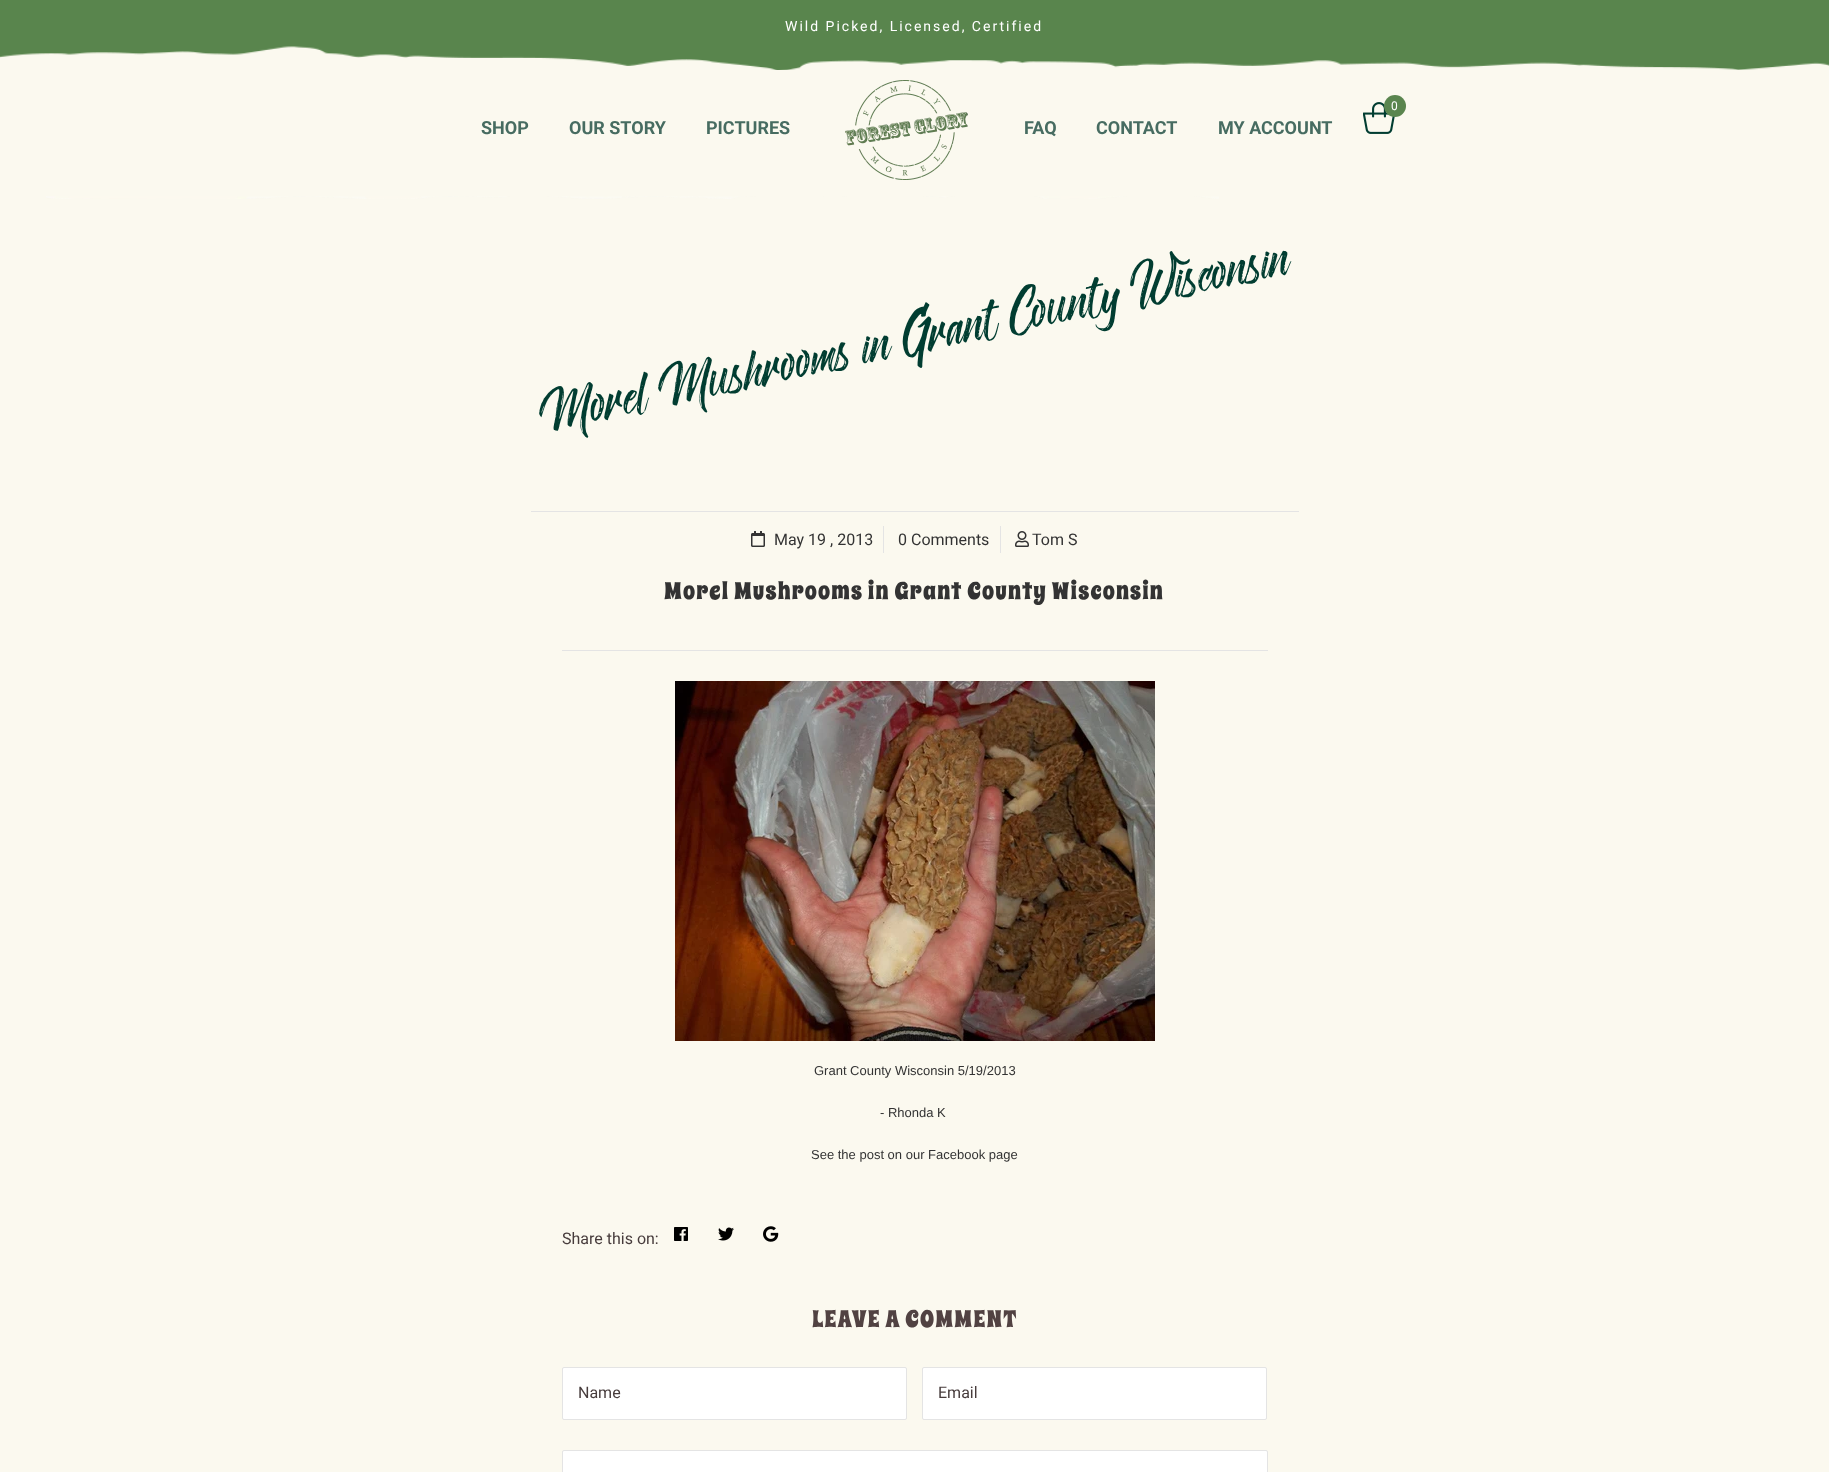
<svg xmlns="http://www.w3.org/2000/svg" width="1829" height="1472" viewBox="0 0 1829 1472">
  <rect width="100%" height="100%" fill="#fbf9ef"/>
  <image x="0" y="0" width="1829" height="70" href="img1.png"/>
  <text x="785" y="31" font-family="Roboto" font-size="14" letter-spacing="2" fill="#ffffff">Wild Picked, Licensed, Certified</text>
  <image x="46" y="196" width="1173" height="3" href="img2.png"/>
  <image x="1363" y="102" width="32" height="32" href="img3.png"/>
  <circle cx="1395" cy="106" r="11" fill="#5a854e"/>
  <text x="1391" y="110" font-family="Roboto" font-size="12" fill="#ffffff">0</text>
  <text x="481" y="134" font-family="Roboto" font-size="18" font-weight="bold" fill="#476c61">SHOP</text>
  <text x="569" y="134" font-family="Roboto" font-size="18" font-weight="bold" fill="#476c61">OUR STORY</text>
  <text x="706" y="134" font-family="Roboto" font-size="18" font-weight="bold" fill="#476c61">PICTURES</text>
  <image x="845" y="80" width="123" height="100" href="img4.png"/>
  <text x="1024" y="134" font-family="Roboto" font-size="18" font-weight="bold" fill="#476c61">FAQ</text>
  <text x="1096" y="134" font-family="Roboto" font-size="18" font-weight="bold" fill="#476c61">CONTACT</text>
  <text x="1218" y="134" font-family="Roboto" font-size="18" font-weight="bold" fill="#476c61">MY ACCOUNT</text>
  <text x="543" y="432" transform="rotate(-12 543 432)" font-family="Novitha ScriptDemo" font-size="75" fill="#013d31">Morel Mushrooms in Grant County Wisconsin</text>
  <rect x="531" y="511" width="768" height="1" fill="#e4e4e4"/>
  <rect x="883" y="526" width="1" height="27" fill="#e4e4e4"/>
  <image x="751" y="531" width="14" height="16" href="img5.png"/>
  <text x="774" y="545" font-family="Roboto" font-size="16" fill="#333333">May 19 , 2013</text>
  <rect x="1000" y="526" width="1" height="27" fill="#e4e4e4"/>
  <text x="898" y="545" font-family="Roboto" font-size="16" fill="#333333">0 Comments</text>
  <image x="1015" y="531" width="14" height="16" href="img6.png"/>
  <text x="1032" y="545" font-family="Roboto" font-size="16" fill="#333333">Tom S</text>
  <text x="664" y="599" font-family="Spicy Rice" font-size="24" letter-spacing="1.2" fill="#333333">Morel Mushrooms in Grant County Wisconsin</text>
  <rect x="562" y="650" width="706" height="1" fill="#e4e4e4"/>
  <image x="675" y="681" width="480" height="360" href="img7.png"/>
  <text x="814" y="1075" font-family="Liberation Sans" font-size="13" fill="#333333">Grant County Wisconsin 5/19/2013</text>
  <text x="880" y="1117" font-family="Liberation Sans" font-size="13" fill="#333333">- Rhonda K</text>
  <text x="811" y="1159" font-family="Liberation Sans" font-size="13" fill="#333333">See the post on our Facebook page</text>
  <text x="562" y="1244" font-family="Roboto" font-size="16" fill="#473c3c">Share this on:</text>
  <image x="674" y="1227" width="14" height="14" href="img8.png"/>
  <image x="718" y="1227" width="16" height="14" href="img9.png"/>
  <image x="763" y="1226" width="16" height="16" href="img10.png"/>
  <text x="812" y="1327" font-family="Spicy Rice" font-size="24" letter-spacing="1.2" fill="#514242">LEAVE A COMMENT</text>
  <rect x="562.5" y="1367.5" width="344" height="52" rx="1.5" fill="#ffffff" stroke="#e4e4e4"/>
  <text x="578" y="1398" font-family="Roboto" font-size="16" fill="#473c3c">Name</text>
  <rect x="922.5" y="1367.5" width="344" height="52" rx="1.5" fill="#ffffff" stroke="#e4e4e4"/>
  <text x="938" y="1398" font-family="Roboto" font-size="16" fill="#473c3c">Email</text>
  <rect x="562.5" y="1450.5" width="705" height="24" rx="1.5" fill="#ffffff" stroke="#e4e4e4"/>
</svg>
